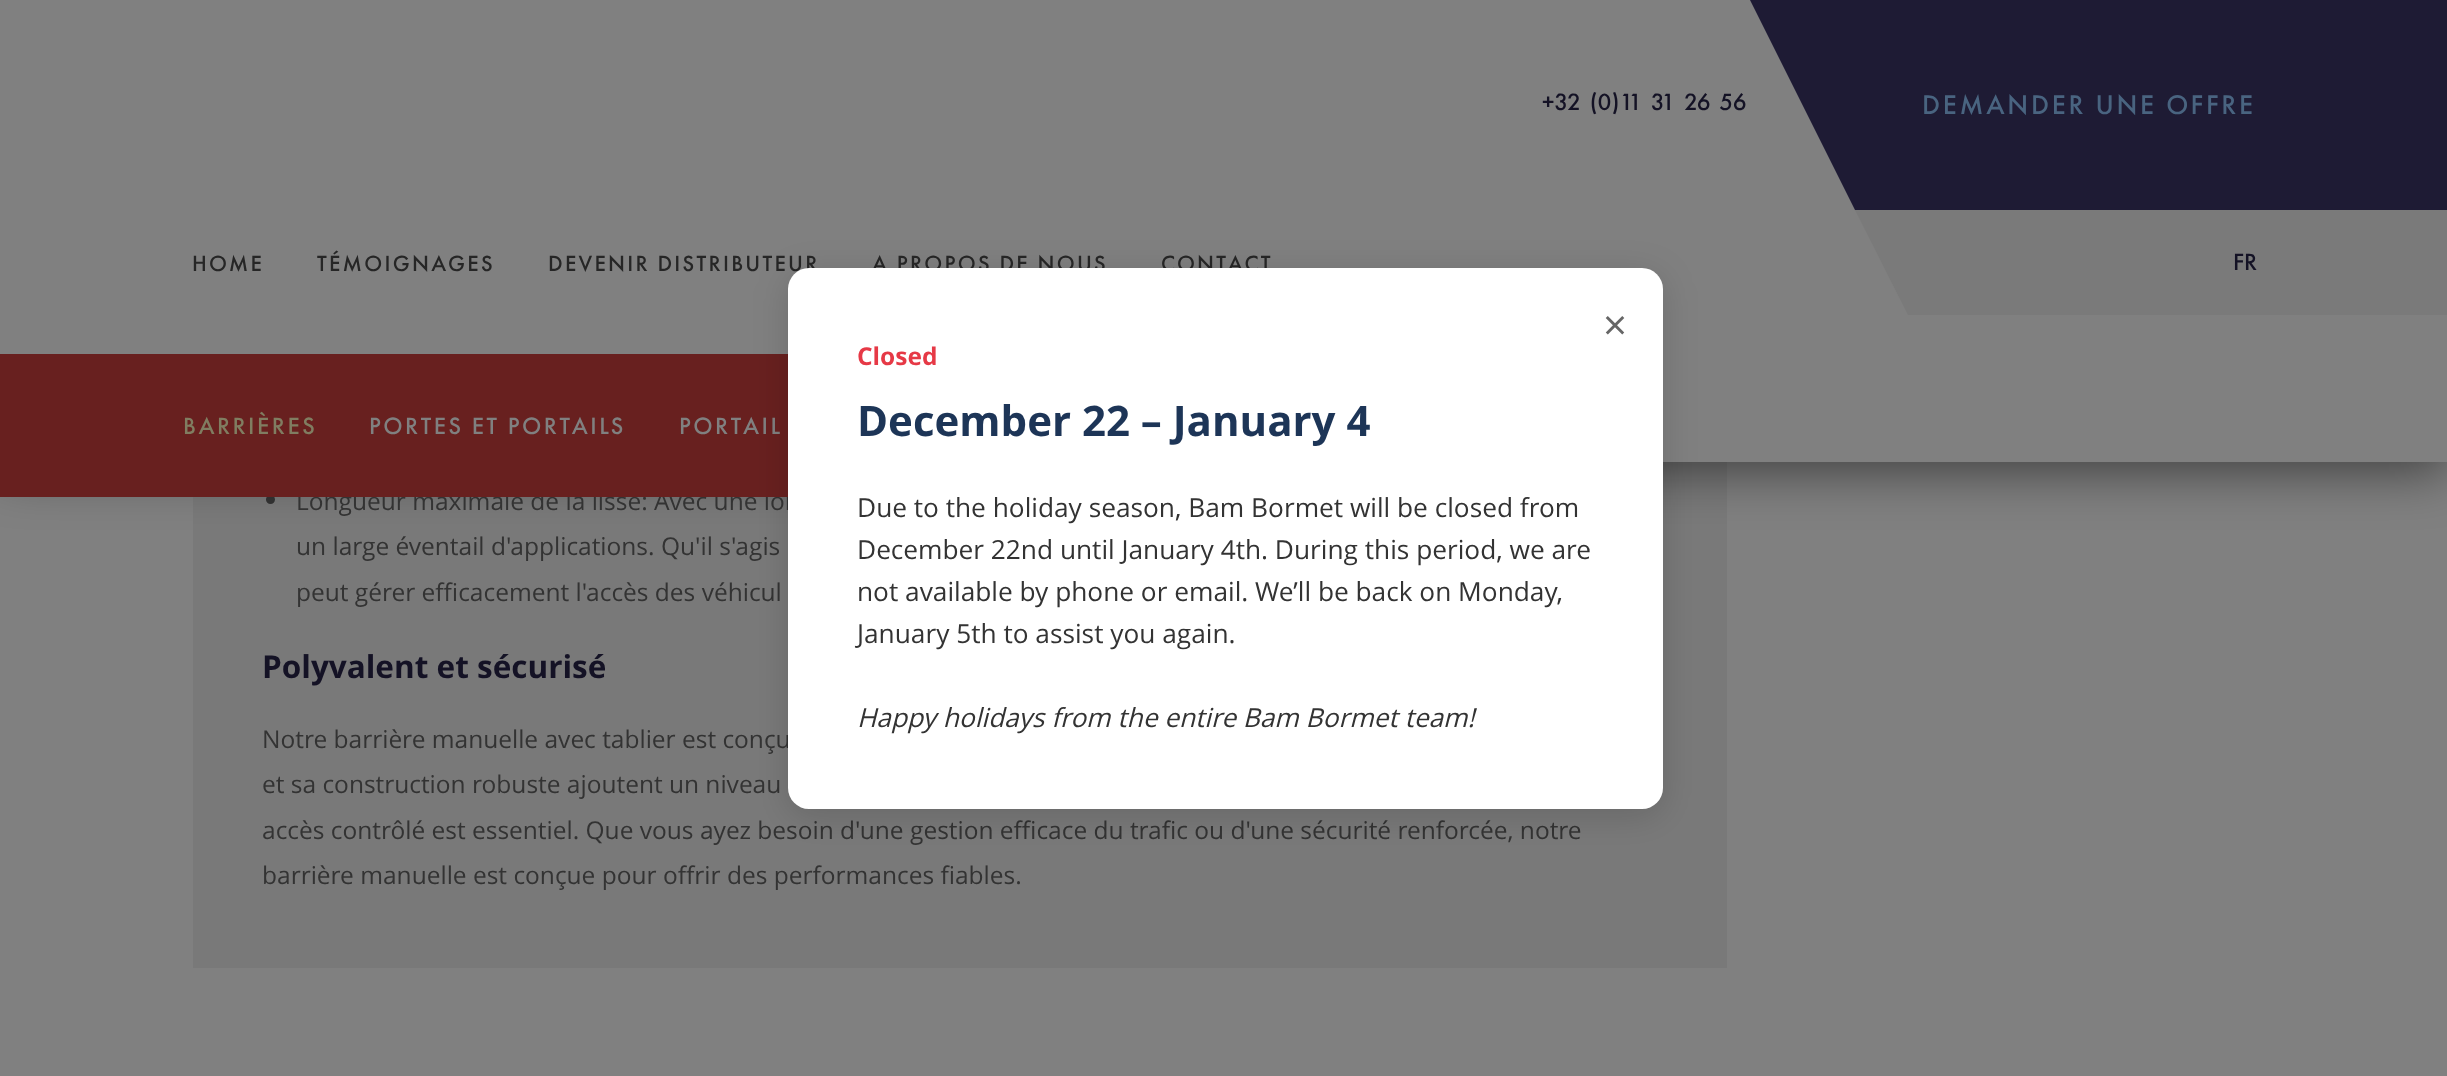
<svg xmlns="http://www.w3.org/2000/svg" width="2447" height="1076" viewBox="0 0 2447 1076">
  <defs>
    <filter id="blur1" x="-50%" y="-200%" width="200%" height="500%"><feGaussianBlur stdDeviation="26"/></filter>
    <filter id="blur2" x="-50%" y="-200%" width="200%" height="500%"><feGaussianBlur stdDeviation="17.5"/></filter>
  </defs>
  <rect width="100%" height="100%" fill="#808080"/>
  <rect x="193" y="462" width="1534" height="506" fill="#797979"/>
  <circle cx="270.5" cy="499.5" r="4.5" fill="#333333"/>
  <rect x="0" y="9" width="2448" height="462" fill="#000000" fill-opacity="0.5" filter="url(#blur1)"/>
  <rect x="0" y="0" width="2447" height="462" fill="#808080"/>
  <text x="192" y="271" font-family="Futura PT" font-size="22.75" font-weight="500" letter-spacing="2.25" fill="#262626">HOME</text>
  <text x="317" y="271" font-family="Futura PT" font-size="22.75" font-weight="500" letter-spacing="2.25" fill="#262626">TÉMOIGNAGES</text>
  <text x="548" y="271" font-family="Futura PT" font-size="22.75" font-weight="500" letter-spacing="2.25" fill="#262626">DEVENIR DISTRIBUTEUR</text>
  <text x="872" y="271" font-family="Futura PT" font-size="22.75" font-weight="500" letter-spacing="2.25" fill="#262626">A PROPOS DE NOUS</text>
  <text x="1161" y="271" font-family="Futura PT" font-size="22.75" font-weight="500" letter-spacing="2.25" fill="#262626">CONTACT</text>
  <rect x="1908" y="210" width="539" height="105" fill="#7a7a7a"/>
  <text x="1542" y="110" word-spacing="3" font-family="Futura PT" font-size="24.5" font-weight="500" fill="#141225">+32 (0)11 31 26 56</text>
  <path d="M1908 210V315L1855 210Z" fill="#7a7a7a"/>
  <text x="2233" y="270" font-family="Futura PT" font-size="24.5" font-weight="500" fill="#141225">FR</text>
  <rect x="1855" y="0" width="592" height="210" fill="#1e1b34"/>
  <path d="M1855 0V210L1750 0Z" fill="#1e1b34"/>
  <text x="1922" y="114" font-family="Futura PT" font-size="28" font-weight="500" letter-spacing="2.75" fill="#496480">DEMANDER UNE OFFRE</text>
  <text x="296" y="510" font-family="Open Sans" font-size="24.5" fill="#333333">Longueur maximale de la lisse: Avec une lon</text>
  <rect x="0" y="354" width="788" height="143" fill="#68201f"/>
  <text x="183" y="434" font-family="Futura PT" font-size="24.5" font-weight="500" letter-spacing="2.5" fill="#807d61">BARRIÈRES</text>
  <text x="369" y="434" font-family="Futura PT" font-size="24.5" font-weight="500" letter-spacing="2.5" fill="#808080">PORTES ET PORTAILS</text>
  <text x="679" y="434" font-family="Futura PT" font-size="24.5" font-weight="500" letter-spacing="2.5" fill="#808080">PORTAIL</text>
  <text x="296" y="555" font-family="Open Sans" font-size="24.5" fill="#333333">un large éventail d'applications. Qu'il s'agis</text>
  <text x="296" y="601" font-family="Open Sans" font-size="24.5" fill="#333333">peut gérer efficacement l'accès des véhicul</text>
  <text x="262" y="678" font-family="Open Sans" font-size="31.5" font-weight="bold" fill="#141225">Polyvalent et sécurisé</text>
  <text x="262" y="748" font-family="Open Sans" font-size="24.5" fill="#333333">Notre barrière manuelle avec tablier est conçu</text>
  <text x="262" y="793" font-family="Open Sans" font-size="24.5" fill="#333333">et sa construction robuste ajoutent un niveau</text>
  <text x="262" y="839" font-family="Open Sans" font-size="24.5" fill="#333333">accès contrôlé est essentiel. Que vous ayez besoin d'une gestion efficace du trafic ou d'une sécurité renforcée, notre</text>
  <text x="262" y="884" font-family="Open Sans" font-size="24.5" fill="#333333">barrière manuelle est conçue pour offrir des performances fiables.</text>
  <rect x="788" y="275" width="875" height="541" rx="21" fill="#000000" fill-opacity="0.15" filter="url(#blur2)"/>
  <rect x="788" y="268" width="875" height="541" rx="21" fill="#ffffff"/>
  <text x="1603" y="340" font-family="Open Sans" font-size="42" fill="#666666">×</text>
  <text x="857" y="365" font-family="Open Sans" font-size="24.5" font-weight="bold" fill="#e63946">Closed</text>
  <text x="857" y="436" font-family="Open Sans" font-size="42" font-weight="bold" fill="#1d3557">December 22 – January 4</text>
  <text x="857" y="517" font-family="Open Sans" font-size="26.25" fill="#333333">Due to the holiday season, Bam Bormet will be closed from</text>
  <text x="857" y="559" font-family="Open Sans" font-size="26.25" fill="#333333">December 22nd until January 4th. During this period, we are</text>
  <text x="857" y="601" font-family="Open Sans" font-size="26.25" fill="#333333">not available by phone or email. We’ll be back on Monday,</text>
  <text x="857" y="643" font-family="Open Sans" font-size="26.25" fill="#333333">January 5th to assist you again.</text>
  <text x="857" y="727" font-family="Open Sans" font-size="26.25" font-style="italic" fill="#333333">Happy holidays from the entire Bam Bormet team!</text>
</svg>
